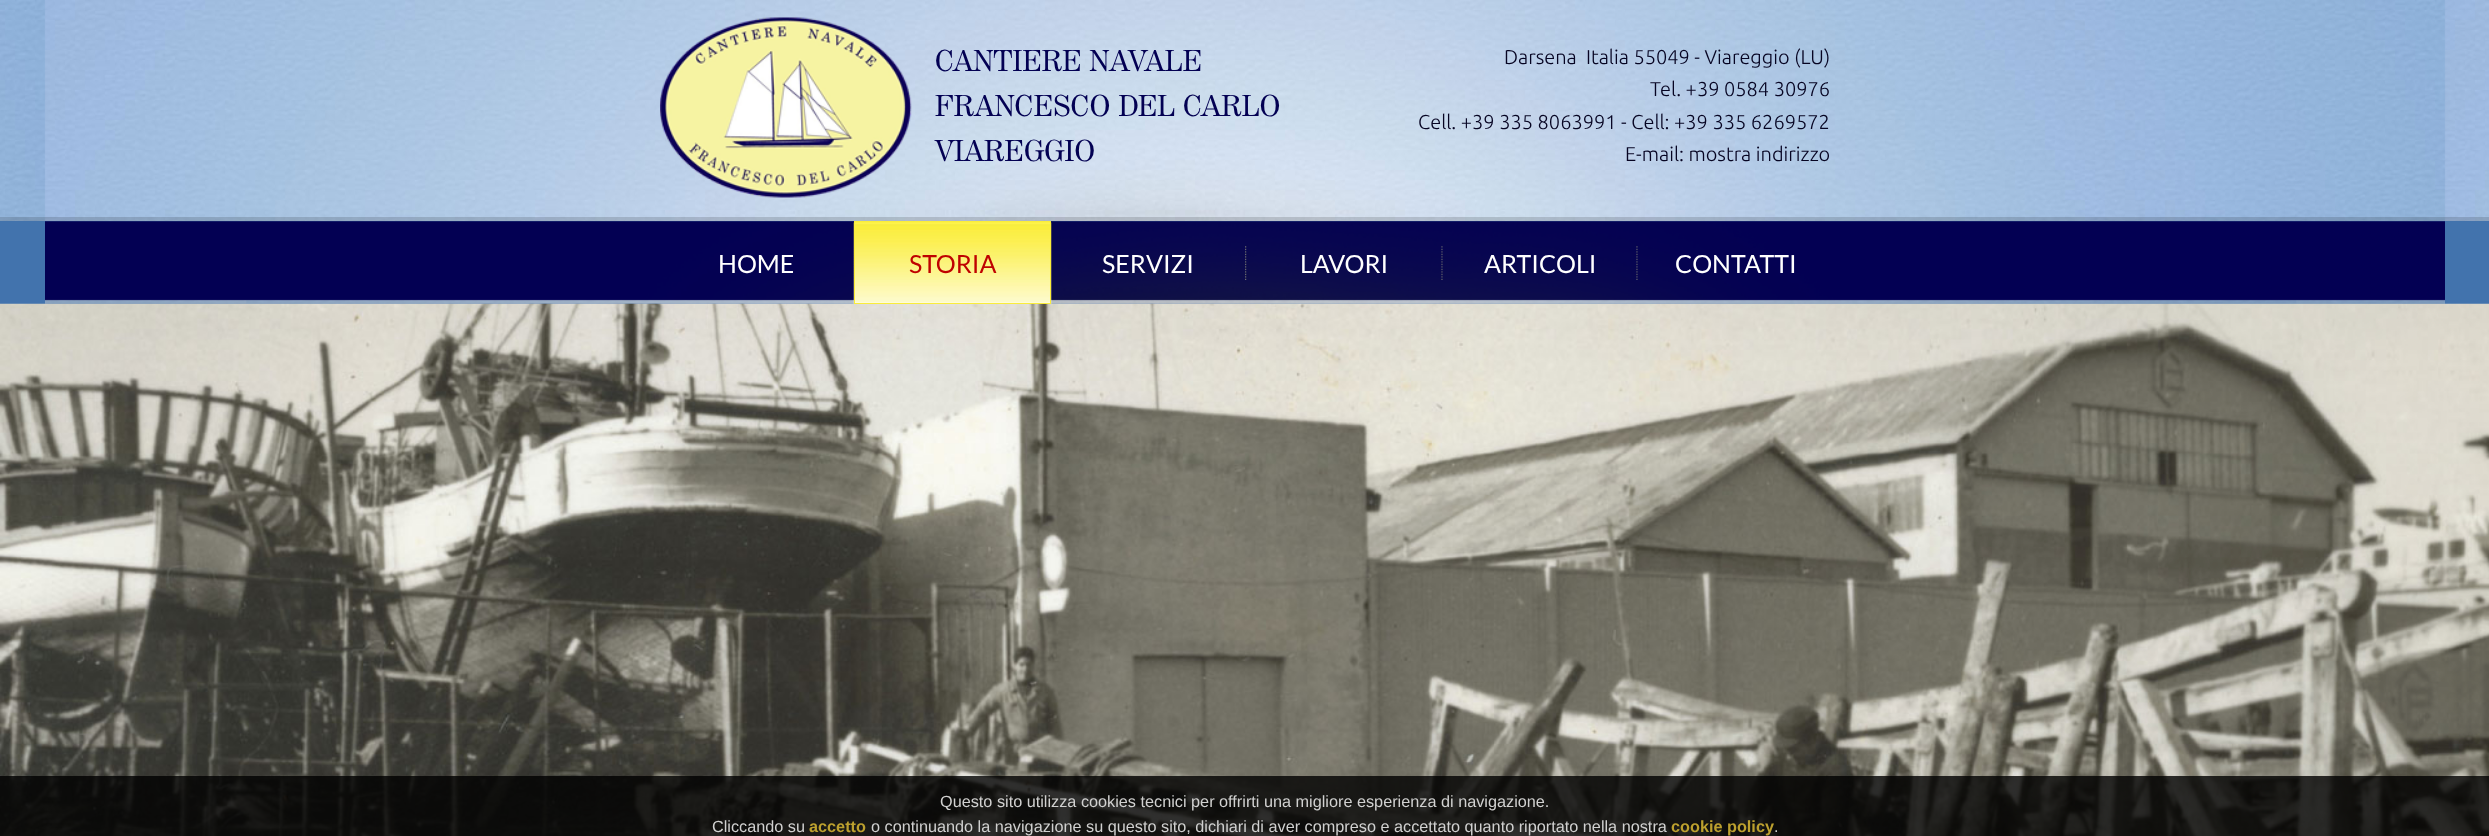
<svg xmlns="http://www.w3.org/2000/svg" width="2489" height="836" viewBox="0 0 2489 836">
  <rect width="100%" height="100%" fill="#ffffff"/>
  <image x="0" y="0" width="2489" height="221" href="img1.png"/>
  <image x="660" y="17" width="252" height="181" href="img2.png"/>
  <text x="935" y="71" font-family="'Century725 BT'" font-size="30" fill="#030053">CANTIERE NAVALE</text>
  <text x="935" y="116" font-family="'Century725 BT'" font-size="30" fill="#030053">FRANCESCO DEL CARLO</text>
  <text x="935" y="161" font-family="'Century725 BT'" font-size="30" fill="#030053">VIAREGGIO</text>
  <text x="1504" y="64" font-family="Ubuntu" font-size="20" font-weight="300" fill="#060422">Darsena</text>
  <text x="1586" y="64" font-family="Ubuntu" font-size="20" font-weight="300" fill="#060422">Italia 55049 - Viareggio (LU)</text>
  <text x="1650" y="96" font-family="Ubuntu" font-size="20" font-weight="300" fill="#060422">Tel. +39 0584 30976</text>
  <text x="1418" y="129" font-family="Ubuntu" font-size="20" font-weight="300" fill="#060422">Cell. +39 335 8063991 - Cell: +39 335 6269572</text>
  <text x="1625" y="161" font-family="Ubuntu" font-size="20" font-weight="300" fill="#060422">E-mail: mostra indirizzo</text>
  <rect x="0" y="217" width="2489" height="4" fill="#000000" fill-opacity="0.15"/>
  <rect x="0" y="221" width="2489" height="83" fill="#4273ad"/>
  <image x="45" y="221" width="2400" height="83" href="img3.png"/>
  <text x="718" y="273" font-family="Lato" font-size="25" fill="#ffffff">HOME</text>
  <image x="853" y="246" width="1" height="34" href="img4.png"/>
  <rect x="855" y="222" width="195" height="1" fill="#faed3a"/>
  <image x="0" y="303" width="2489" height="533" href="img9.png"/>
  <image x="853" y="222" width="199" height="82" href="img5.png"/>
  <rect x="854.5" y="221.5" width="196" height="82" fill="none" stroke="#faed3a"/>
  <text x="909" y="273" font-family="Lato" font-size="25" fill="#bf0200">STORIA</text>
  <text x="1102" y="273" font-family="Lato" font-size="25" fill="#ffffff">SERVIZI</text>
  <image x="1245" y="246" width="2" height="34" href="img6.png"/>
  <text x="1300" y="273" font-family="Lato" font-size="25" fill="#ffffff">LAVORI</text>
  <image x="1441" y="246" width="2" height="34" href="img7.png"/>
  <text x="1484" y="273" font-family="Lato" font-size="25" fill="#ffffff">ARTICOLI</text>
  <image x="1636" y="246" width="2" height="34" href="img8.png"/>
  <text x="1675" y="273" font-family="Lato" font-size="25" fill="#ffffff">CONTATTI</text>
  <rect x="0" y="776" width="2489" height="60" fill="#000000" fill-opacity="0.8"/>
  <text x="940" y="807" font-family="Liberation Sans" font-size="16.25" fill="#d1d1d0">Questo sito utilizza cookies tecnici per offrirti una migliore esperienza di navigazione.</text>
  <text x="712" y="832" font-family="Liberation Sans" font-size="16.25" fill="#d1d1d0">Cliccando su</text>
  <text x="809" y="832" font-family="Liberation Sans" font-size="16.25" font-weight="bold" fill="#bca02e">accetto</text>
  <text x="871" y="832" font-family="Liberation Sans" font-size="16.25" fill="#d1d1d0">o continuando la navigazione su questo sito, dichiari di aver compreso e accettato quanto riportato nella nostra</text>
  <text x="1671" y="832" font-family="Liberation Sans" font-size="16.25" font-weight="bold" fill="#bca02e">cookie policy</text>
  <text x="1774" y="832" font-family="Liberation Sans" font-size="16.25" fill="#d1d1d0">.</text>
</svg>
